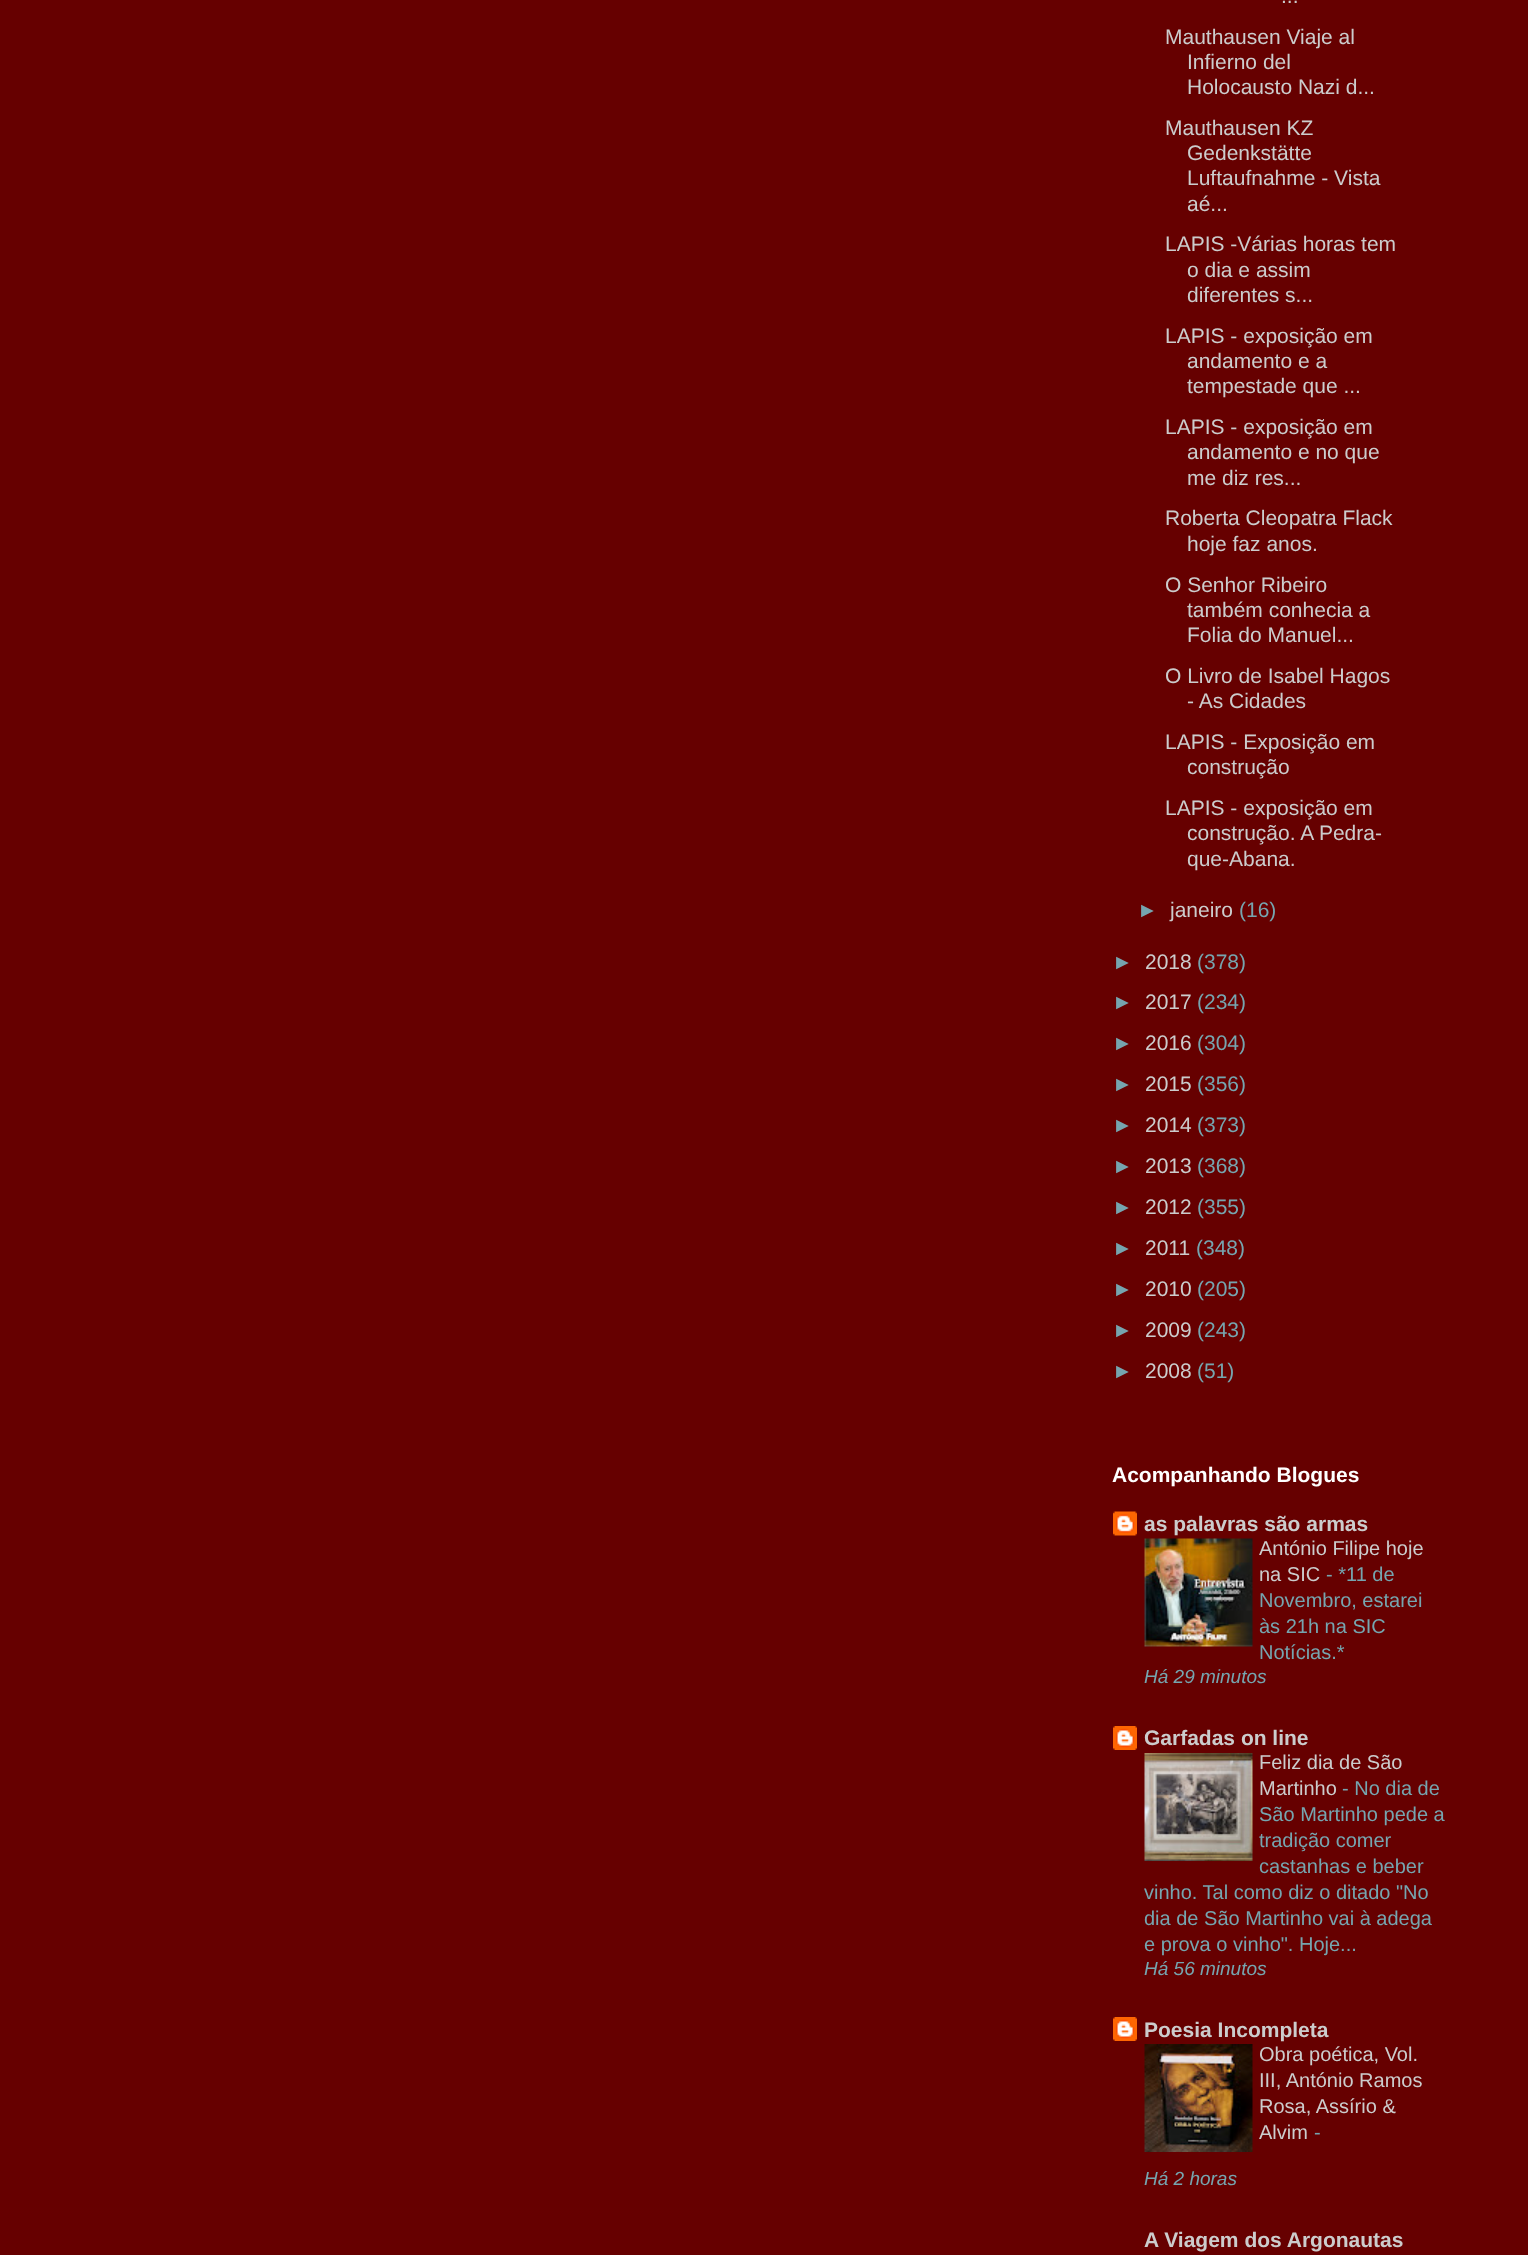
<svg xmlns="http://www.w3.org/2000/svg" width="1528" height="2255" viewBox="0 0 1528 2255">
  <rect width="100%" height="100%" fill="#660000"/>
  <text x="1281" y="3" font-family="Liberation Sans" font-size="21" fill="#cccccc">...</text>
  <text x="1165" y="44" font-family="Liberation Sans" font-size="21" fill="#cccccc">Mauthausen Viaje al</text>
  <text x="1187" y="69" font-family="Liberation Sans" font-size="21" fill="#cccccc">Infierno del</text>
  <text x="1187" y="94" font-family="Liberation Sans" font-size="21" fill="#cccccc">Holocausto Nazi d...</text>
  <text x="1165" y="135" font-family="Liberation Sans" font-size="21" fill="#cccccc">Mauthausen KZ</text>
  <text x="1187" y="160" font-family="Liberation Sans" font-size="21" fill="#cccccc">Gedenkstätte</text>
  <text x="1187" y="185" font-family="Liberation Sans" font-size="21" fill="#cccccc">Luftaufnahme - Vista</text>
  <text x="1187" y="211" font-family="Liberation Sans" font-size="21" fill="#cccccc">aé...</text>
  <text x="1165" y="251" font-family="Liberation Sans" font-size="21" fill="#cccccc">LAPIS -Várias horas tem</text>
  <text x="1187" y="277" font-family="Liberation Sans" font-size="21" fill="#cccccc">o dia e assim</text>
  <text x="1187" y="302" font-family="Liberation Sans" font-size="21" fill="#cccccc">diferentes s...</text>
  <text x="1165" y="343" font-family="Liberation Sans" font-size="21" fill="#cccccc">LAPIS - exposição em</text>
  <text x="1187" y="368" font-family="Liberation Sans" font-size="21" fill="#cccccc">andamento e a</text>
  <text x="1187" y="393" font-family="Liberation Sans" font-size="21" fill="#cccccc">tempestade que ...</text>
  <text x="1165" y="434" font-family="Liberation Sans" font-size="21" fill="#cccccc">LAPIS - exposição em</text>
  <text x="1187" y="459" font-family="Liberation Sans" font-size="21" fill="#cccccc">andamento e no que</text>
  <text x="1187" y="485" font-family="Liberation Sans" font-size="21" fill="#cccccc">me diz res...</text>
  <text x="1165" y="525" font-family="Liberation Sans" font-size="21" fill="#cccccc">Roberta Cleopatra Flack</text>
  <text x="1187" y="551" font-family="Liberation Sans" font-size="21" fill="#cccccc">hoje faz anos.</text>
  <text x="1165" y="592" font-family="Liberation Sans" font-size="21" fill="#cccccc">O Senhor Ribeiro</text>
  <text x="1187" y="617" font-family="Liberation Sans" font-size="21" fill="#cccccc">também conhecia a</text>
  <text x="1187" y="642" font-family="Liberation Sans" font-size="21" fill="#cccccc">Folia do Manuel...</text>
  <text x="1165" y="683" font-family="Liberation Sans" font-size="21" fill="#cccccc">O Livro de Isabel Hagos</text>
  <text x="1187" y="708" font-family="Liberation Sans" font-size="21" fill="#cccccc">- As Cidades</text>
  <text x="1165" y="749" font-family="Liberation Sans" font-size="21" fill="#cccccc">LAPIS - Exposição em</text>
  <text x="1187" y="774" font-family="Liberation Sans" font-size="21" fill="#cccccc">construção</text>
  <text x="1165" y="815" font-family="Liberation Sans" font-size="21" fill="#cccccc">LAPIS - exposição em</text>
  <text x="1187" y="840" font-family="Liberation Sans" font-size="21" fill="#cccccc">construção. A Pedra-</text>
  <text x="1187" y="866" font-family="Liberation Sans" font-size="21" fill="#cccccc">que-Abana.</text>
  <text x="1137" y="917" font-family="Liberation Sans" font-size="21" fill="#76a5af">►</text>
  <text x="1170" y="917" font-family="Liberation Sans" font-size="21" fill="#cccccc">janeiro</text>
  <text x="1239" y="917" font-family="Liberation Sans" font-size="21" fill="#76a5af">(16)</text>
  <text x="1112" y="969" font-family="Liberation Sans" font-size="21" fill="#76a5af">►</text>
  <text x="1145" y="969" font-family="Liberation Sans" font-size="21" fill="#cccccc">2018</text>
  <text x="1197" y="969" font-family="Liberation Sans" font-size="21" fill="#76a5af">(378)</text>
  <text x="1112" y="1009" font-family="Liberation Sans" font-size="21" fill="#76a5af">►</text>
  <text x="1145" y="1009" font-family="Liberation Sans" font-size="21" fill="#cccccc">2017</text>
  <text x="1197" y="1009" font-family="Liberation Sans" font-size="21" fill="#76a5af">(234)</text>
  <text x="1112" y="1050" font-family="Liberation Sans" font-size="21" fill="#76a5af">►</text>
  <text x="1145" y="1050" font-family="Liberation Sans" font-size="21" fill="#cccccc">2016</text>
  <text x="1197" y="1050" font-family="Liberation Sans" font-size="21" fill="#76a5af">(304)</text>
  <text x="1112" y="1091" font-family="Liberation Sans" font-size="21" fill="#76a5af">►</text>
  <text x="1145" y="1091" font-family="Liberation Sans" font-size="21" fill="#cccccc">2015</text>
  <text x="1197" y="1091" font-family="Liberation Sans" font-size="21" fill="#76a5af">(356)</text>
  <text x="1112" y="1132" font-family="Liberation Sans" font-size="21" fill="#76a5af">►</text>
  <text x="1145" y="1132" font-family="Liberation Sans" font-size="21" fill="#cccccc">2014</text>
  <text x="1197" y="1132" font-family="Liberation Sans" font-size="21" fill="#76a5af">(373)</text>
  <text x="1112" y="1173" font-family="Liberation Sans" font-size="21" fill="#76a5af">►</text>
  <text x="1145" y="1173" font-family="Liberation Sans" font-size="21" fill="#cccccc">2013</text>
  <text x="1197" y="1173" font-family="Liberation Sans" font-size="21" fill="#76a5af">(368)</text>
  <text x="1112" y="1214" font-family="Liberation Sans" font-size="21" fill="#76a5af">►</text>
  <text x="1145" y="1214" font-family="Liberation Sans" font-size="21" fill="#cccccc">2012</text>
  <text x="1197" y="1214" font-family="Liberation Sans" font-size="21" fill="#76a5af">(355)</text>
  <text x="1112" y="1255" font-family="Liberation Sans" font-size="21" fill="#76a5af">►</text>
  <text x="1145" y="1255" font-family="Liberation Sans" font-size="21" fill="#cccccc">2011</text>
  <text x="1196" y="1255" font-family="Liberation Sans" font-size="21" fill="#76a5af">(348)</text>
  <text x="1112" y="1296" font-family="Liberation Sans" font-size="21" fill="#76a5af">►</text>
  <text x="1145" y="1296" font-family="Liberation Sans" font-size="21" fill="#cccccc">2010</text>
  <text x="1197" y="1296" font-family="Liberation Sans" font-size="21" fill="#76a5af">(205)</text>
  <text x="1112" y="1337" font-family="Liberation Sans" font-size="21" fill="#76a5af">►</text>
  <text x="1145" y="1337" font-family="Liberation Sans" font-size="21" fill="#cccccc">2009</text>
  <text x="1197" y="1337" font-family="Liberation Sans" font-size="21" fill="#76a5af">(243)</text>
  <text x="1112" y="1378" font-family="Liberation Sans" font-size="21" fill="#76a5af">►</text>
  <text x="1145" y="1378" font-family="Liberation Sans" font-size="21" fill="#cccccc">2008</text>
  <text x="1197" y="1378" font-family="Liberation Sans" font-size="21" fill="#76a5af">(51)</text>
  <text x="1112" y="1482" font-family="Liberation Sans" font-size="21" font-weight="bold" fill="#ffffff">Acompanhando Blogues</text>
  <image x="1113" y="1511" width="24" height="25" href="img1.png"/>
  <text x="1144" y="1531" font-family="Liberation Sans" font-size="21" font-weight="bold" fill="#cccccc">as palavras são armas</text>
  <image x="1144" y="1538" width="109" height="109" href="img2.png"/>
  <text x="1259" y="1555" font-family="Liberation Sans" font-size="20" fill="#cccccc">António Filipe hoje</text>
  <text x="1259" y="1581" font-family="Liberation Sans" font-size="20" fill="#cccccc">na SIC</text>
  <text x="1326" y="1581" font-family="Liberation Sans" font-size="20" fill="#76a5af">- *11 de</text>
  <text x="1259" y="1607" font-family="Liberation Sans" font-size="20" fill="#76a5af">Novembro, estarei</text>
  <text x="1259" y="1633" font-family="Liberation Sans" font-size="20" fill="#76a5af">às 21h na SIC</text>
  <text x="1259" y="1659" font-family="Liberation Sans" font-size="20" fill="#76a5af">Notícias.*</text>
  <text x="1144" y="1683" font-family="Liberation Sans" font-size="19" font-style="italic" fill="#76a5af">Há 29 minutos</text>
  <image x="1113" y="1726" width="24" height="24" href="img3.png"/>
  <text x="1144" y="1745" font-family="Liberation Sans" font-size="21" font-weight="bold" fill="#cccccc">Garfadas on line</text>
  <image x="1144" y="1753" width="109" height="108" href="img4.png"/>
  <text x="1259" y="1769" font-family="Liberation Sans" font-size="20" fill="#cccccc">Feliz dia de São</text>
  <text x="1259" y="1795" font-family="Liberation Sans" font-size="20" fill="#cccccc">Martinho</text>
  <text x="1342" y="1795" font-family="Liberation Sans" font-size="20" fill="#76a5af">- No dia de</text>
  <text x="1259" y="1821" font-family="Liberation Sans" font-size="20" fill="#76a5af">São Martinho pede a</text>
  <text x="1259" y="1847" font-family="Liberation Sans" font-size="20" fill="#76a5af">tradição comer</text>
  <text x="1259" y="1873" font-family="Liberation Sans" font-size="20" fill="#76a5af">castanhas e beber</text>
  <text x="1144" y="1899" font-family="Liberation Sans" font-size="20" fill="#76a5af">vinho. Tal como diz o ditado "No</text>
  <text x="1144" y="1925" font-family="Liberation Sans" font-size="20" fill="#76a5af">dia de São Martinho vai à adega</text>
  <text x="1144" y="1951" font-family="Liberation Sans" font-size="20" fill="#76a5af">e prova o vinho". Hoje...</text>
  <text x="1144" y="1975" font-family="Liberation Sans" font-size="19" font-style="italic" fill="#76a5af">Há 56 minutos</text>
  <image x="1113" y="2017" width="24" height="24" href="img3.png"/>
  <text x="1144" y="2037" font-family="Liberation Sans" font-size="21" font-weight="bold" fill="#cccccc">Poesia Incompleta</text>
  <image x="1144" y="2044" width="109" height="108" href="img5.png"/>
  <text x="1259" y="2061" font-family="Liberation Sans" font-size="20" fill="#cccccc">Obra poética, Vol.</text>
  <text x="1259" y="2087" font-family="Liberation Sans" font-size="20" fill="#cccccc">III, António Ramos</text>
  <text x="1259" y="2113" font-family="Liberation Sans" font-size="20" fill="#cccccc">Rosa, Assírio &amp;</text>
  <text x="1259" y="2139" font-family="Liberation Sans" font-size="20" fill="#cccccc">Alvim</text>
  <text x="1314" y="2139" font-family="Liberation Sans" font-size="20" fill="#76a5af">-</text>
  <text x="1144" y="2185" font-family="Liberation Sans" font-size="19" font-style="italic" fill="#76a5af">Há 2 horas</text>
  <text x="1144" y="2247" font-family="Liberation Sans" font-size="21" font-weight="bold" fill="#cccccc">A Viagem dos Argonautas</text>
</svg>
